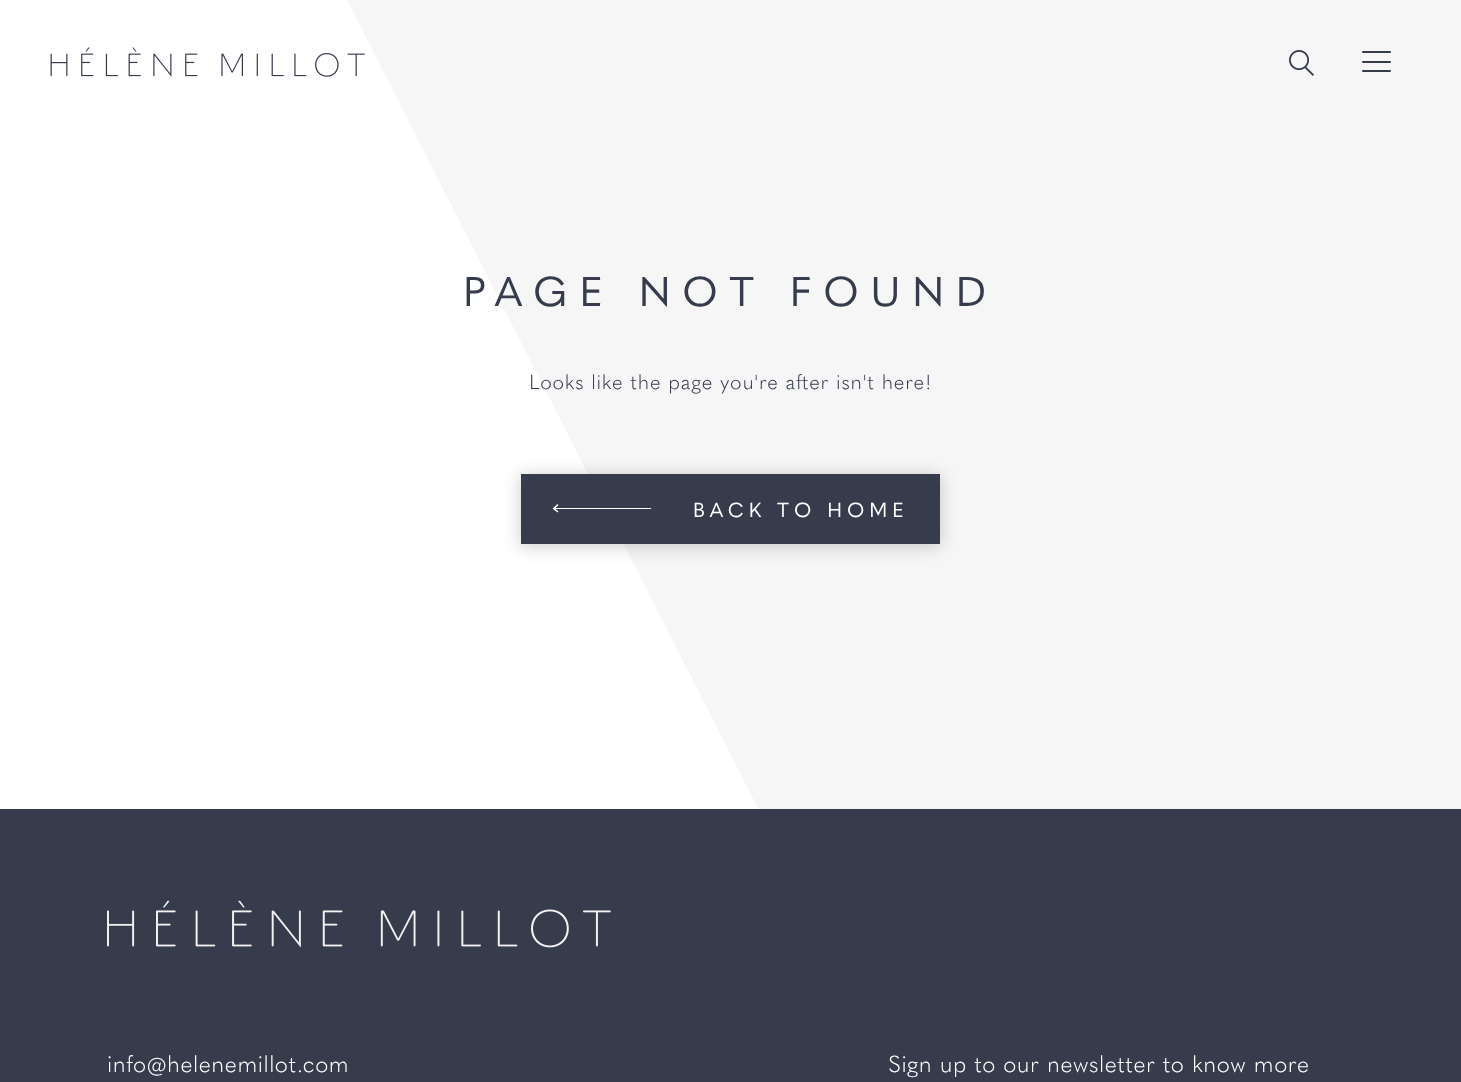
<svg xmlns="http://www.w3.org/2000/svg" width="1461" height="1082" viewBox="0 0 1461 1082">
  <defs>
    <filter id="blur1" x="-50%" y="-200%" width="200%" height="500%"><feGaussianBlur stdDeviation="8.5"/></filter>
  </defs>
  <rect width="100%" height="100%" fill="#ffffff"/>
  <rect x="347" y="0" width="1114" height="809" fill="#f6f6f7"/>
  <path d="M347 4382V0L1461 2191Z" fill="#ffffff"/>
  <image x="50" y="47" width="315" height="30" href="img1.png"/>
  <image x="1289" y="50" width="25" height="26" href="img2.png"/>
  <rect x="1362" y="51" width="29" height="2" rx="1" fill="#373c4d"/>
  <rect x="1362" y="61" width="29" height="2" rx="1" fill="#373c4d"/>
  <rect x="1362" y="70" width="29" height="2" rx="1" fill="#373c4d"/>
  <text x="463" y="306" font-family="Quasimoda" font-size="41.1" letter-spacing="11.8" fill="#373c4d">PAGE NOT FOUND</text>
  <text x="529" y="389" font-family="Quasimoda" font-size="20.1" font-weight="300" letter-spacing="0.8" fill="#373c4d">Looks like the page you're after isn't here!</text>
  <rect x="521" y="476" width="419" height="70" fill="#000000" fill-opacity="0.21" filter="url(#blur1)"/>
  <rect x="521" y="474" width="419" height="70" fill="#373c4d"/>
  <rect x="553" y="508" width="98" height="1" fill="#ffffff"/>
  <path d="M558.5 505L557.5 504L552.5 508.5L557.5 512.5L558.5 511.5L555 508.5Z" fill="#ffffff"/>
  <text x="693" y="517" font-family="Quasimoda" font-size="20.1" letter-spacing="5" fill="#ffffff">BACK TO HOME</text>
  <rect x="0" y="809" width="1461" height="273" fill="#373c4d"/>
  <image x="107" y="900" width="504" height="48" href="img3.png"/>
  <text x="107" y="1072" font-family="Quasimoda" font-size="22.8" font-weight="300" letter-spacing="0.55" fill="#ffffff">info@helenemillot.com</text>
  <text x="888" y="1072" font-family="Quasimoda" font-size="22.8" font-weight="300" letter-spacing="0.55" fill="#ffffff">Sign up to our newsletter to know more</text>
</svg>
